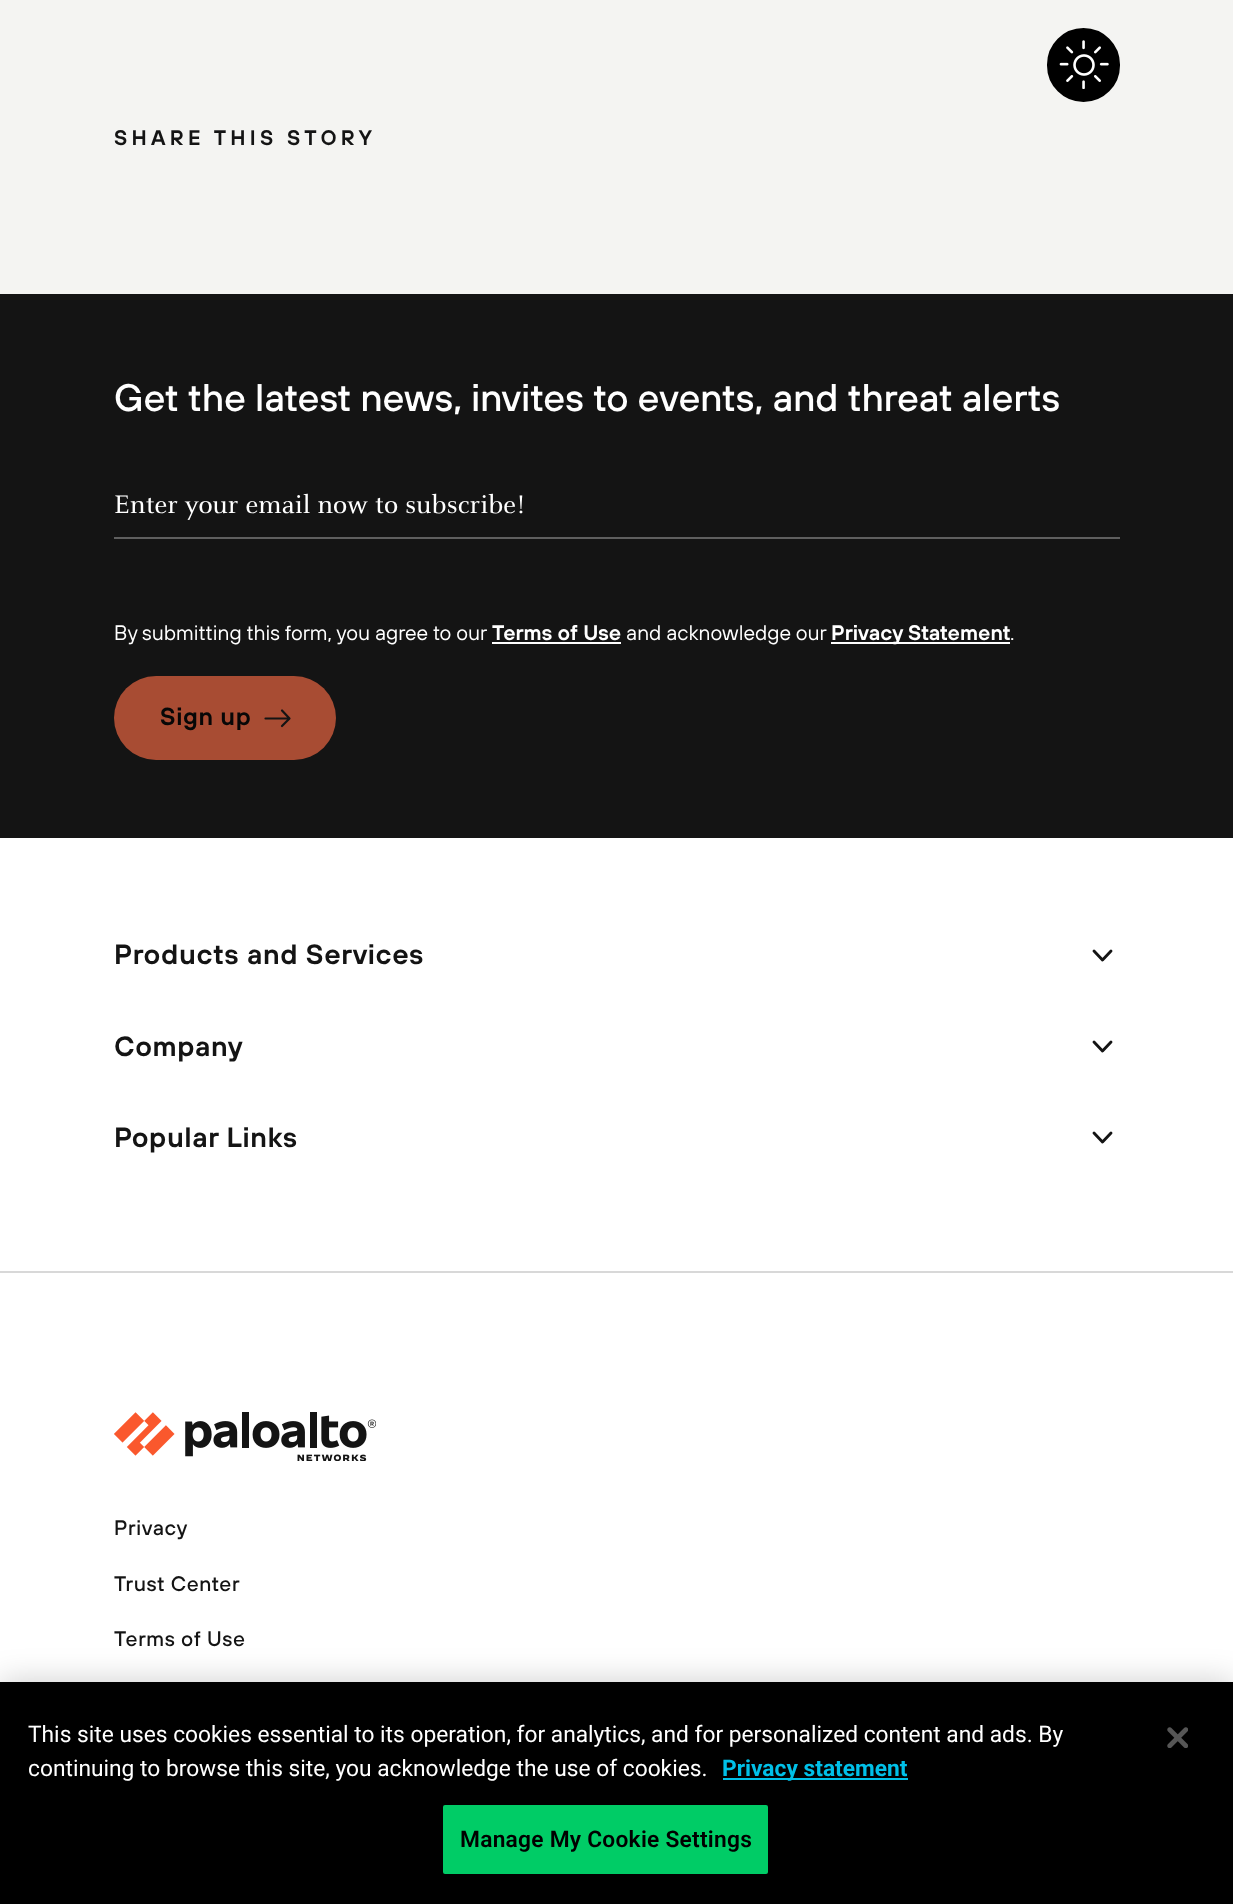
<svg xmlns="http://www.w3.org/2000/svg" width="1233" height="1904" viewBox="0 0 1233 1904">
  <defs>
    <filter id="blur1" x="-50%" y="-200%" width="200%" height="500%"><feGaussianBlur stdDeviation="16"/></filter>
  </defs>
  <rect width="100%" height="100%" fill="#f4f4f2"/>
  <rect x="1049.5" y="30.5" width="68" height="69" rx="34" fill="#000000" stroke="#000000" stroke-width="5"/>
  <image x="1059" y="40" width="50" height="49" href="img1.png"/>
  <text x="114" y="145" font-family="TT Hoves" font-size="21" font-weight="600" letter-spacing="4.25" fill="#141414">SHARE THIS STORY</text>
  <rect x="0" y="838" width="1233" height="844" fill="#ffffff"/>
  <rect x="0" y="294" width="1233" height="544" fill="#141414"/>
  <text x="114" y="411" font-family="TT Hoves" font-size="38.5" font-weight="500" fill="#ffffff">Get the latest news, invites to events, and threat alerts</text>
  <rect x="114" y="537" width="1006" height="2" fill="#5f5f5f"/>
  <text x="114" y="513" font-family="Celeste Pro" font-size="28" fill="#ffffff">Enter your email now to subscribe!</text>
  <text x="114" y="640" font-family="TT Hoves" font-size="21" fill="#ffffff">By submitting this form, you agree to our</text>
  <text x="492" y="640" font-family="TT Hoves" font-size="21" font-weight="600" fill="#ffffff">Terms of Use</text>
  <rect x="492" y="642" width="129" height="2" fill="#ffffff"/>
  <text x="626" y="640" font-family="TT Hoves" font-size="21" fill="#ffffff">and acknowledge our</text>
  <rect x="831" y="642" width="179" height="2" fill="#ffffff"/>
  <text x="831" y="640" font-family="TT Hoves" font-size="21" font-weight="600" fill="#ffffff">Privacy Statement</text>
  <text x="1010" y="640" font-family="TT Hoves" font-size="21" fill="#ffffff">.</text>
  <rect x="114" y="676" width="222" height="84" rx="42" fill="#a84c33"/>
  <text x="160" y="725" font-family="TT Hoves" font-size="24.5" font-weight="600" letter-spacing="0.6" fill="#070707">Sign up</text>
  <path d="M265.5 718.5H287M282 710.5L289.5 718.5L282 726" fill="none" stroke="#141414" stroke-width="2.2" stroke-linecap="round" stroke-linejoin="round"/>
  <text x="114" y="964" font-family="TT Hoves" font-size="28" font-weight="600" letter-spacing="0.6" fill="#141414">Products and Services</text>
  <path d="M1094 951L1102.5 960L1111 951" fill="none" stroke="#141414" stroke-width="2.9" stroke-linecap="round" stroke-linejoin="round"/>
  <text x="114" y="1056" font-family="TT Hoves" font-size="28" font-weight="600" letter-spacing="0.6" fill="#141414">Company</text>
  <path d="M1094 1042L1102.5 1051L1111 1042" fill="none" stroke="#141414" stroke-width="2.9" stroke-linecap="round" stroke-linejoin="round"/>
  <text x="114" y="1147" font-family="TT Hoves" font-size="28" font-weight="600" letter-spacing="0.6" fill="#141414">Popular Links</text>
  <path d="M1094 1133L1102.5 1142L1111 1133" fill="none" stroke="#141414" stroke-width="2.9" stroke-linecap="round" stroke-linejoin="round"/>
  <rect x="0" y="1271" width="1233" height="2" fill="#d8d8d8"/>
  <image x="114" y="1412" width="262" height="49" href="img2.png"/>
  <text x="114" y="1535" font-family="TT Hoves" font-size="21" font-weight="500" letter-spacing="0.6" fill="#141414">Privacy</text>
  <text x="114" y="1591" font-family="TT Hoves" font-size="21" font-weight="500" letter-spacing="0.6" fill="#141414">Trust Center</text>
  <text x="114" y="1646" font-family="TT Hoves" font-size="21" font-weight="500" letter-spacing="0.6" fill="#141414">Terms of Use</text>
  <rect x="0" y="1682" width="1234" height="222" fill="#000000" fill-opacity="0.2" filter="url(#blur1)"/>
  <rect x="0" y="1682" width="1233" height="222" fill="#000000"/>
  <text x="28" y="1742" font-family="Roboto" font-size="22.75" fill="#ffffff">This site uses cookies essential to its operation, for analytics, and for personalized content and ads. By</text>
  <text x="28" y="1776" font-family="Roboto" font-size="22.75" fill="#ffffff">continuing to browse this site, you acknowledge the use of cookies.</text>
  <rect x="723" y="1778" width="185" height="2" fill="#00c0e8"/>
  <text x="722" y="1776" font-family="Roboto" font-size="22.75" font-weight="bold" fill="#00c0e8">Privacy statement</text>
  <rect x="442" y="1804" width="327" height="71" rx="3" fill="#00cc66" stroke="#000000" stroke-width="2"/>
  <text x="460" y="1847" font-family="Roboto" font-size="22.75" font-weight="600" letter-spacing="0.25" fill="#000000">Manage My Cookie Settings</text>
  <image x="1167" y="1727" width="21" height="21" href="img3.png"/>
</svg>
